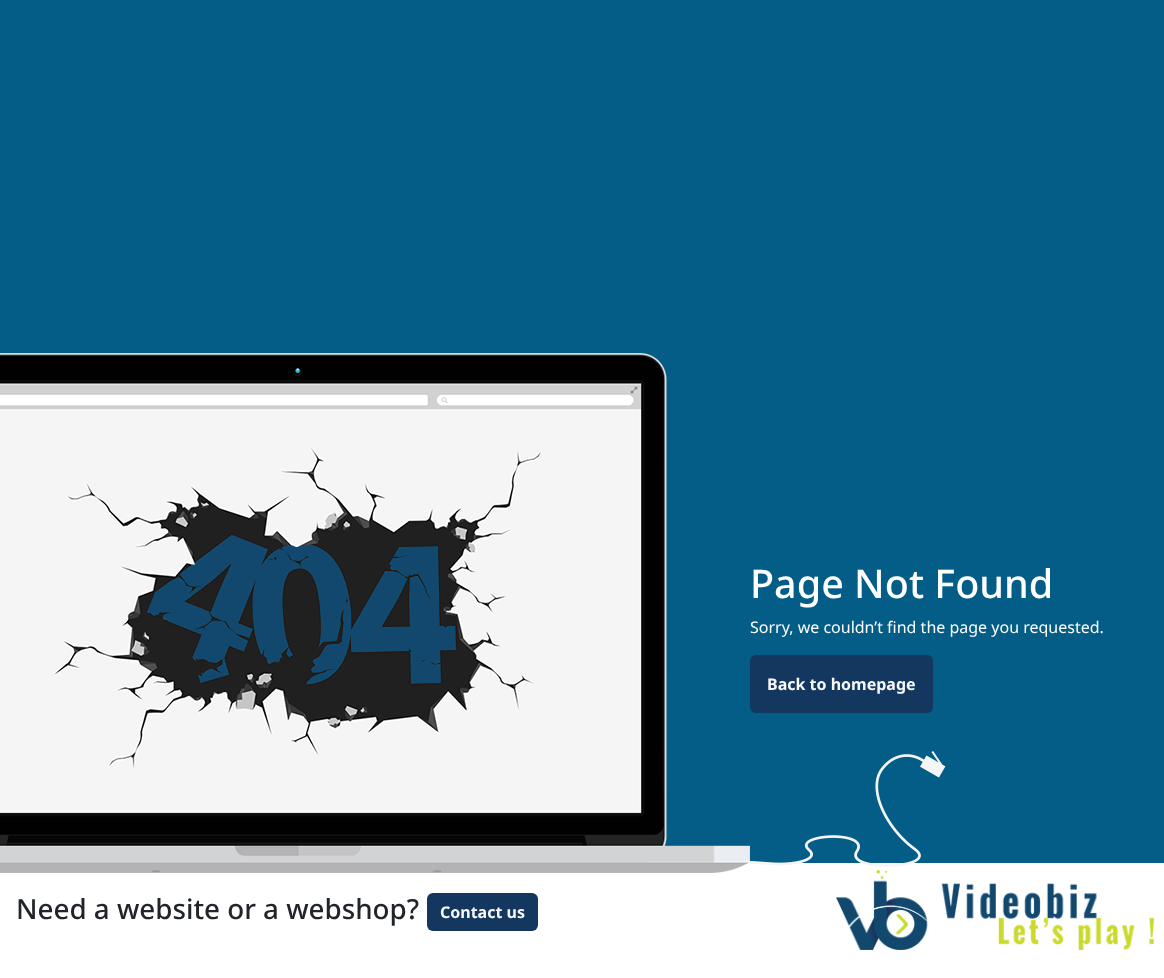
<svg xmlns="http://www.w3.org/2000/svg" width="1164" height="978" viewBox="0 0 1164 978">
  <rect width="100%" height="100%" fill="#ffffff"/>
  <rect x="0" y="0" width="1164" height="863" fill="#035d87"/>
  <image x="0" y="353" width="946" height="520" href="img1.png"/>
  <text x="750" y="598" font-family="Noto Sans" font-size="39.5" font-weight="500" fill="#ffffff">Page Not Found</text>
  <text x="750" y="633" font-family="Noto Sans" font-size="16" fill="#ffffff">Sorry, we couldn’t find the page you requested.</text>
  <rect x="750" y="655" width="183" height="58" rx="6" fill="#13375e"/>
  <text x="767" y="690" font-family="Noto Sans" font-size="16" font-weight="bold" fill="#f8f9fa">Back to homepage</text>
  <text x="16" y="919" font-family="Noto Sans" font-size="27.75" font-weight="500" fill="#212529">Need a website or a webshop?</text>
  <rect x="427" y="893" width="111" height="38" rx="6" fill="#13375e"/>
  <text x="440" y="918" font-family="Noto Sans" font-size="16" font-weight="bold" fill="#f8f9fa">Contact us</text>
  <image x="836" y="870" width="318" height="80" href="img2.png"/>
</svg>
